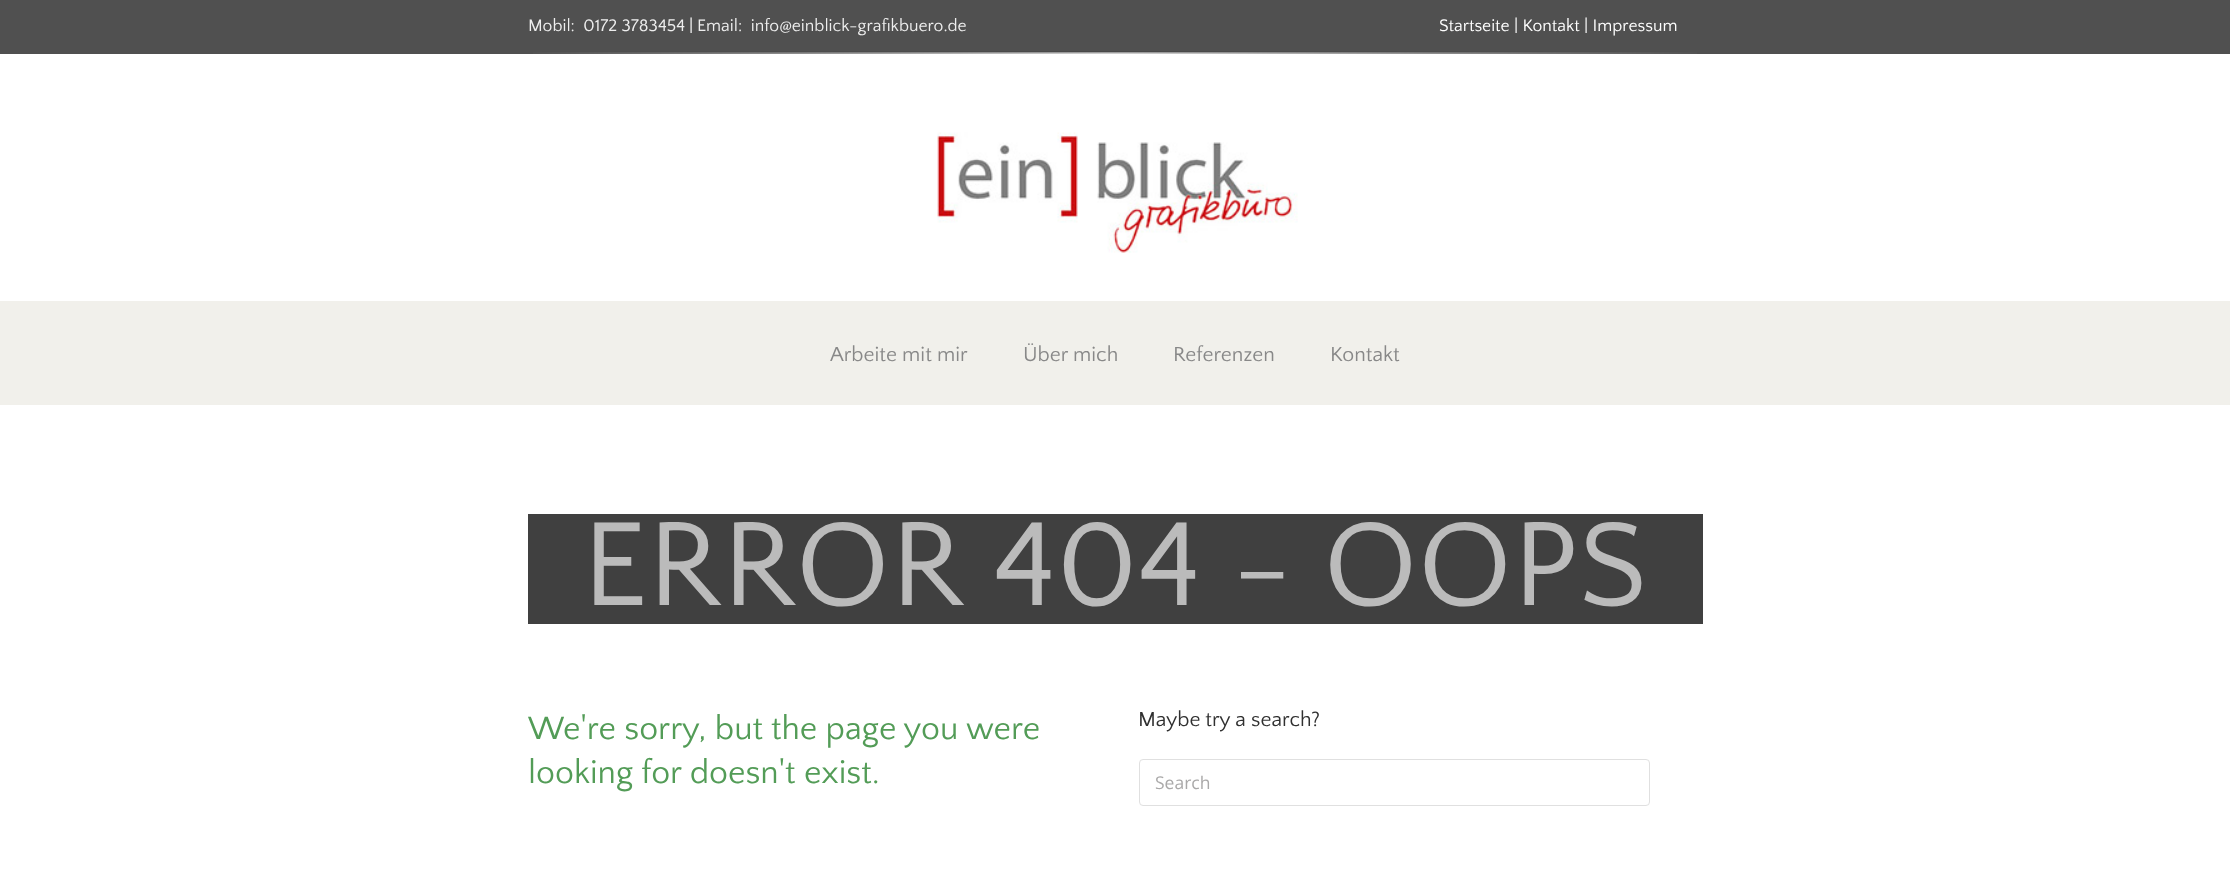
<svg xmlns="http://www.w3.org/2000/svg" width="2230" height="871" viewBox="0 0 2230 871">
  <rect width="100%" height="100%" fill="#ffffff"/>
  <rect x="0" y="0" width="2230" height="54" fill="#505050"/>
  <image x="533" y="51" width="1164" height="3" href="img1.png"/>
  <text x="528" y="31" font-family="Quattrocento Sans" font-size="17.5" fill="#eeeeee" xml:space="preserve">Mobil:  0172 3783454</text>
  <text x="689" y="31" font-family="Quattrocento Sans" font-size="17.5" fill="#ffffff">|</text>
  <text x="697" y="31" font-family="Quattrocento Sans" font-size="17.5" fill="#eeeeee" xml:space="preserve">Email:  info@einblick-grafikbuero.de</text>
  <text x="1439" y="31" font-family="Quattrocento Sans" font-size="17.5" fill="#ffffff">Startseite | Kontakt | Impressum</text>
  <image x="937" y="132" width="361" height="121" href="img2.png"/>
  <rect x="0" y="301" width="2230" height="104" fill="#f1f0eb"/>
  <text x="830" y="361" font-family="Quattrocento Sans" font-size="21.25" fill="#888888">Arbeite mit mir</text>
  <text x="1023" y="361" font-family="Quattrocento Sans" font-size="21.25" fill="#888888">Über mich</text>
  <text x="1173" y="361" font-family="Quattrocento Sans" font-size="21.25" fill="#888888">Referenzen</text>
  <text x="1330" y="361" font-family="Quattrocento Sans" font-size="21.25" fill="#888888">Kontakt</text>
  <rect x="528" y="514" width="1175" height="110" fill="#404040"/>
  <text x="582" y="605" font-family="Quattrocento Sans" font-size="125" fill="#bbbbbb">ERROR 404 - OOPS</text>
  <text x="528" y="739" font-family="Quattrocento Sans" font-size="33.75" fill="#539c57">We're sorry, but the page you were</text>
  <text x="528" y="783" font-family="Quattrocento Sans" font-size="33.75" fill="#539c57">looking for doesn't exist.</text>
  <text x="1138" y="726" font-family="Quattrocento Sans" font-size="21.25" fill="#303030">Maybe try a search?</text>
  <rect x="1139.5" y="759.5" width="510" height="46" rx="3.5" fill="none" stroke="#e0e0e0"/>
  <text x="1155" y="789" font-family="Open Sans" font-size="17.5" fill="#aaa9a9">Search</text>
</svg>
